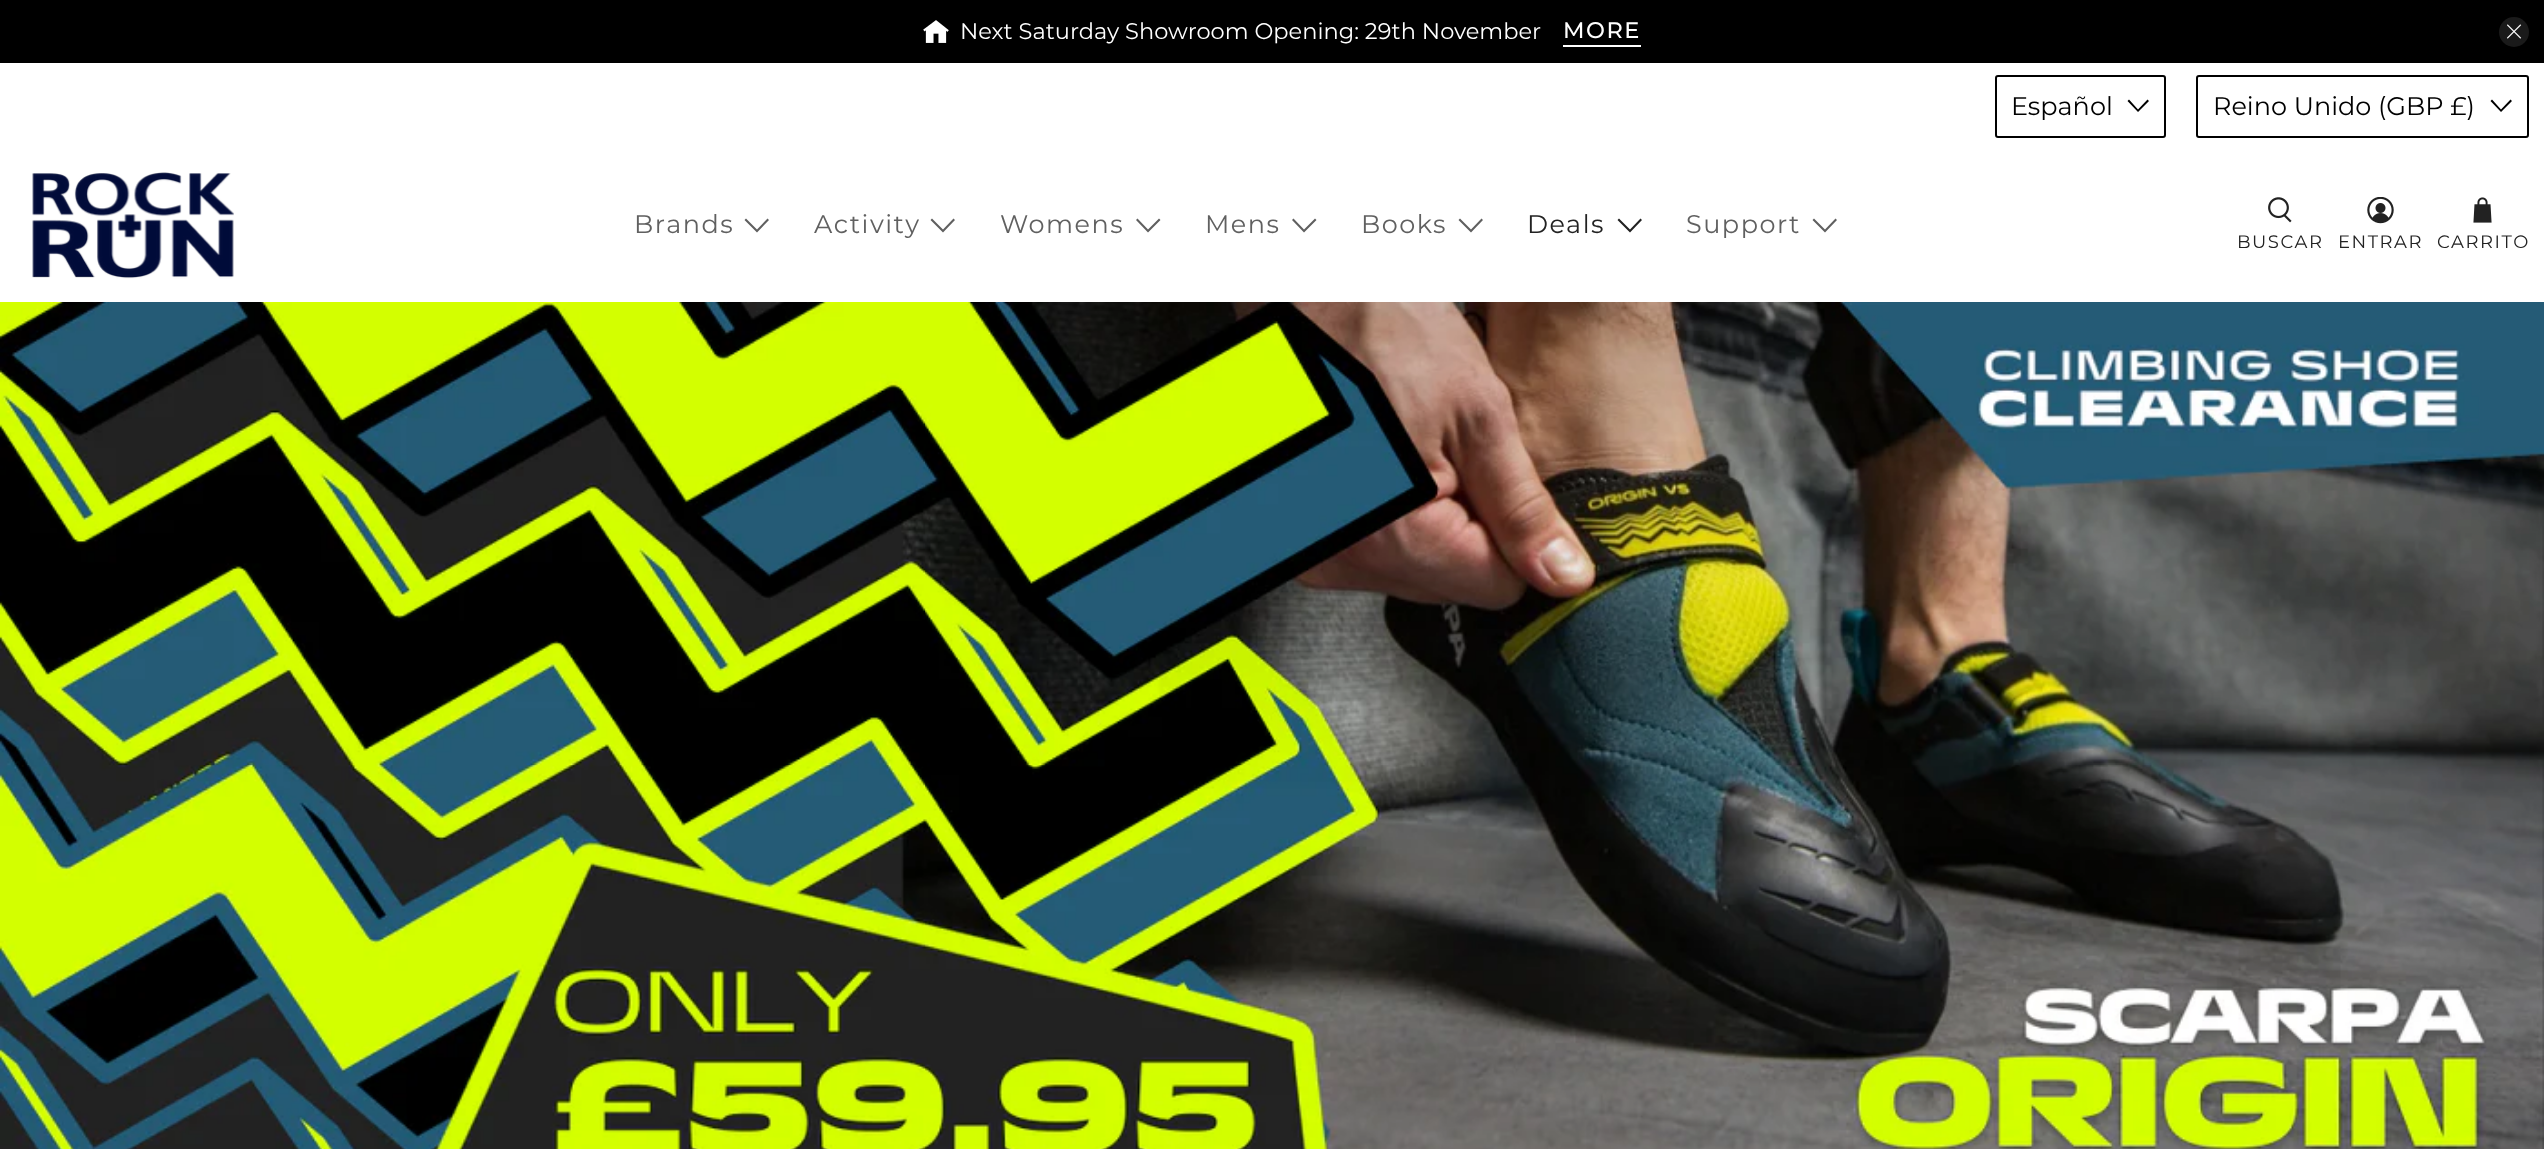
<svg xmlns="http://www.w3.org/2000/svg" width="2544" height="1149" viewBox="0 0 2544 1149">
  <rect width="100%" height="100%" fill="#ffffff"/>
  <rect x="0" y="0" width="2544" height="63" fill="#000000"/>
  <image x="923" y="20" width="26" height="23" href="img1.png"/>
  <text x="960" y="39" font-family="Montserrat" font-size="22.5" fill="#ffffff">Next Saturday Showroom Opening: 29th November</text>
  <rect x="1563" y="45" width="78" height="2" fill="#ffffff"/>
  <text x="1563" y="38" font-family="Montserrat" font-size="22.5" font-weight="500" letter-spacing="1.5" fill="#ffffff">MORE</text>
  <circle cx="2514" cy="32" r="15" fill="#1a1a1a"/>
  <image x="2507" y="24" width="15" height="15" href="img2.png"/>
  <rect x="1996" y="76" width="169" height="61" rx="2" fill="none" stroke="#000000" stroke-width="2"/>
  <text x="2011" y="115" font-family="Montserrat" font-size="25.5" fill="#000000">Español</text>
  <path d="M2138 112L2127.5 101L2129 99.5L2138 109.5L2147.5 99.5L2149 101Z" fill="#000000"/>
  <rect x="2197" y="76" width="331" height="61" rx="2" fill="none" stroke="#000000" stroke-width="2"/>
  <text x="2213" y="115" font-family="Montserrat" font-size="25.5" fill="#000000">Reino Unido (GBP £)</text>
  <path d="M2501 112L2490.5 101L2492 99.5L2501 109.5L2510.5 99.5L2512 101Z" fill="#000000"/>
  <image x="32" y="172" width="202" height="107" href="img3.png"/>
  <text x="634" y="233" font-family="Montserrat" font-size="25.5" letter-spacing="1.5" fill="#606060">Brands</text>
  <path d="M757 232.5L744.5 220L746 218.5L757 229.5L767.5 218.5L769 220Z" fill="#606060"/>
  <text x="814" y="233" font-family="Montserrat" font-size="25.5" letter-spacing="1.5" fill="#606060">Activity</text>
  <path d="M943 232.5L930.5 220L932 218.5L943 229.5L953.5 218.5L955 220Z" fill="#606060"/>
  <text x="1000" y="233" font-family="Montserrat" font-size="25.5" letter-spacing="1.5" fill="#606060">Womens</text>
  <path d="M1148 232.5L1136 220L1137.5 218.5L1148 229.5L1159 218.5L1160.5 220Z" fill="#606060"/>
  <text x="1205" y="233" font-family="Montserrat" font-size="25.5" letter-spacing="1.5" fill="#606060">Mens</text>
  <path d="M1304 232.5L1292 220L1293.5 218.5L1304 229.5L1315 218.5L1316.5 220Z" fill="#606060"/>
  <text x="1361" y="233" font-family="Montserrat" font-size="25.5" letter-spacing="1.5" fill="#606060">Books</text>
  <path d="M1471 232.5L1458.5 220L1460 218.5L1471 229.5L1481.5 218.5L1483 220Z" fill="#606060"/>
  <text x="1527" y="233" font-family="Montserrat" font-size="25.5" letter-spacing="1.5" fill="#222222">Deals</text>
  <path d="M1630 232.5L1617.5 220L1619 218.5L1630 229.5L1640.5 218.5L1642 220Z" fill="#222222"/>
  <text x="1686" y="233" font-family="Montserrat" font-size="25.5" letter-spacing="1.5" fill="#606060">Support</text>
  <path d="M1825 232.5L1812.5 220L1814 218.5L1825 229.5L1835.5 218.5L1837 220Z" fill="#606060"/>
  <image x="2268" y="197" width="24" height="26" href="img4.png"/>
  <text x="2237" y="248" font-family="Montserrat" font-size="18" letter-spacing="1.5" fill="#222222">BUSCAR</text>
  <image x="2367" y="197" width="27" height="27" href="img5.png"/>
  <text x="2338" y="248" font-family="Montserrat" font-size="18" letter-spacing="1.5" fill="#222222">ENTRAR</text>
  <image x="2473" y="197" width="19" height="26" href="img6.png"/>
  <text x="2437" y="248" font-family="Montserrat" font-size="18" letter-spacing="1.5" fill="#222222">CARRITO</text>
  <image x="0" y="302" width="2544" height="847" href="img7.png"/>
</svg>
